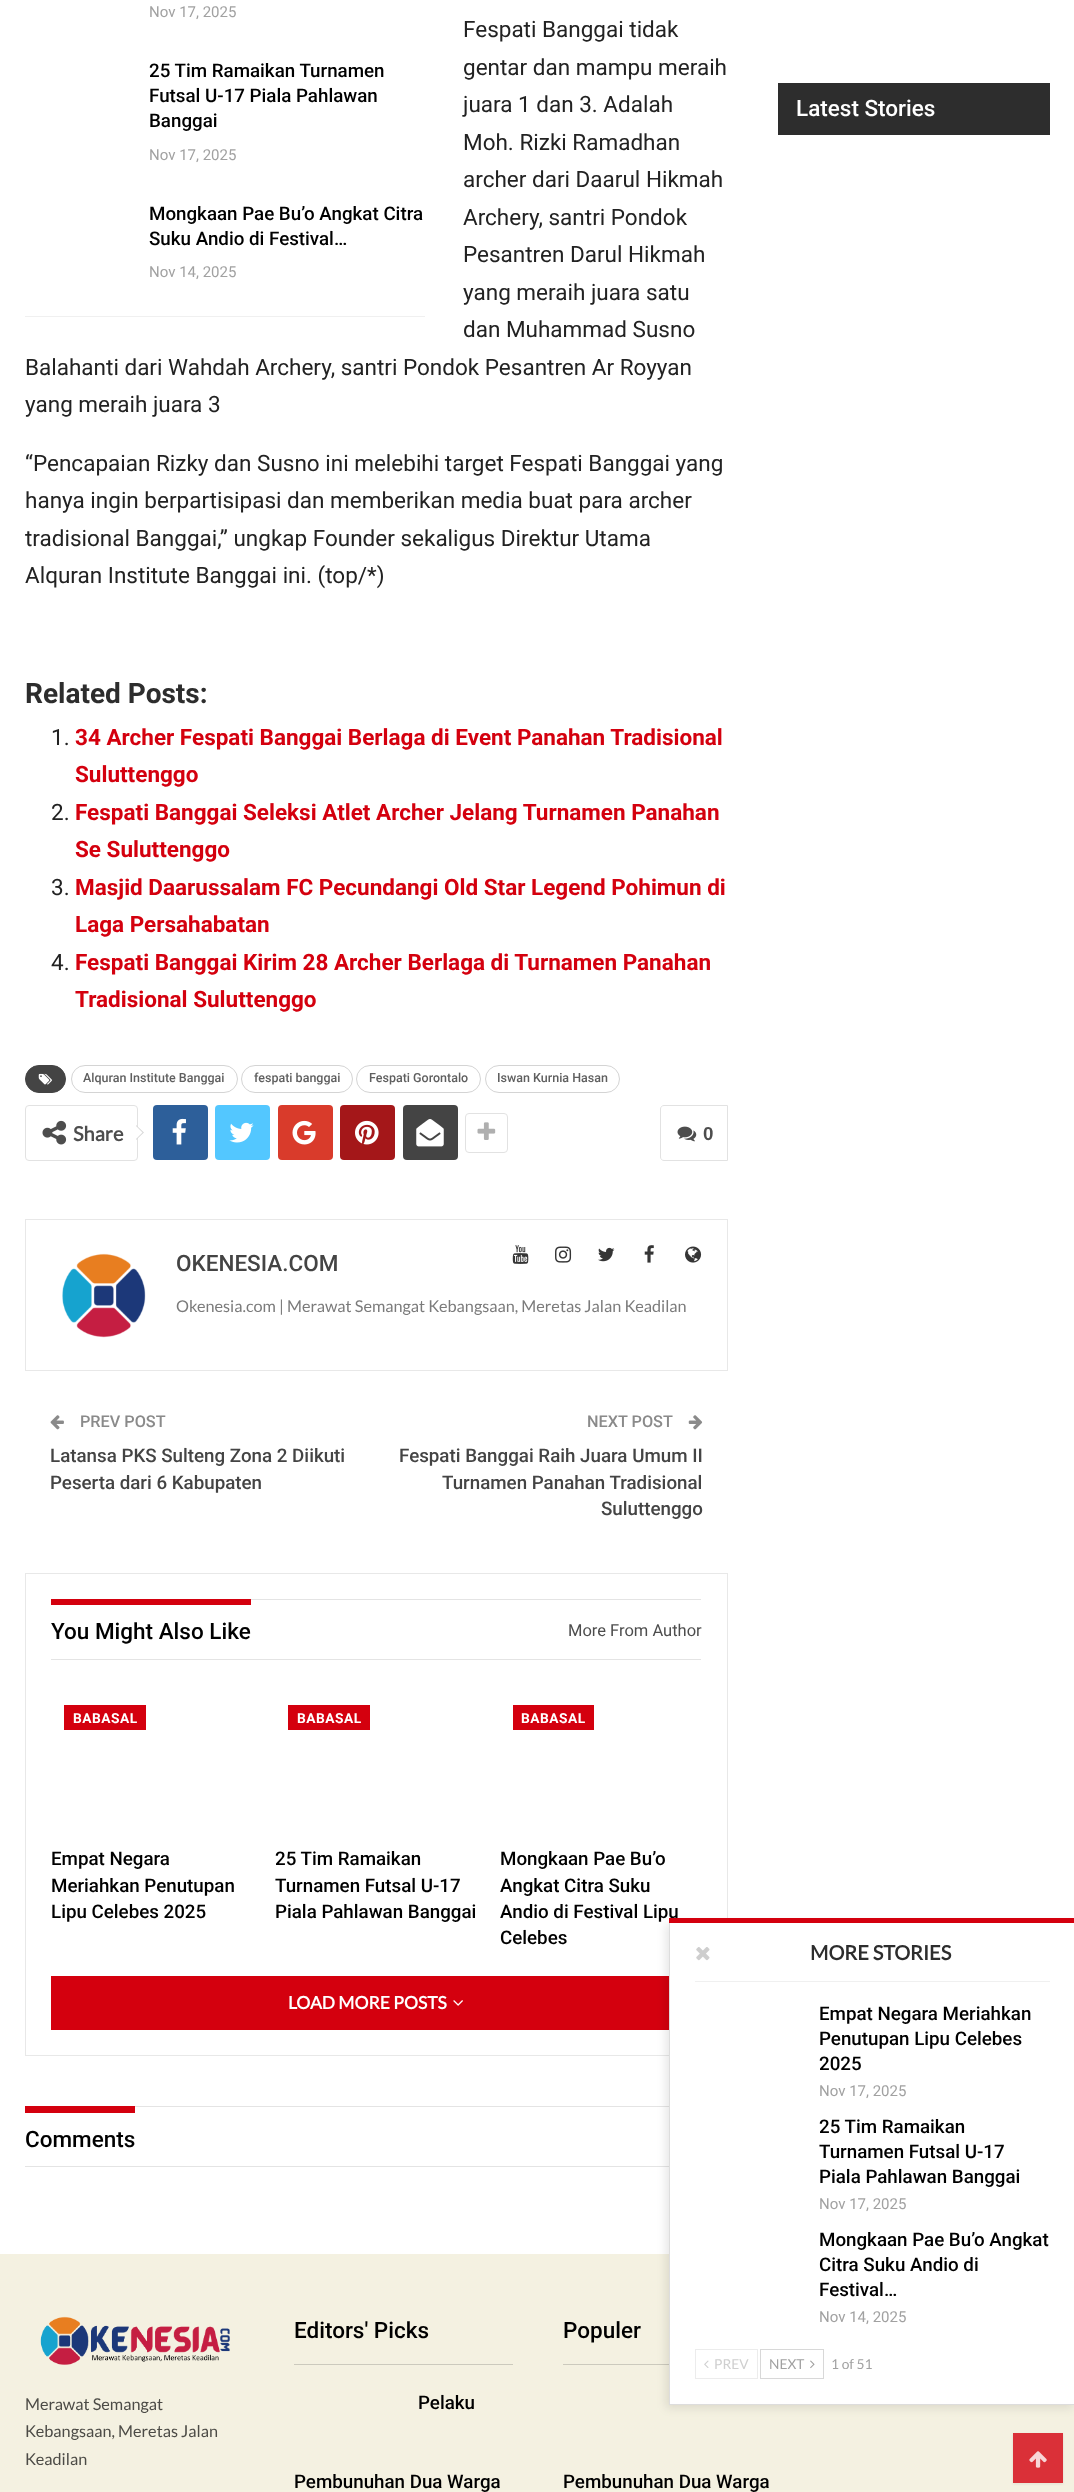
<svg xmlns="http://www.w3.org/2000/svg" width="1074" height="2492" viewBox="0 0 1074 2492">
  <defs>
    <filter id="blur1" x="-50%" y="-200%" width="200%" height="500%"><feGaussianBlur stdDeviation="5"/></filter>
    <filter id="blur2" x="-50%" y="-200%" width="200%" height="500%"><feGaussianBlur stdDeviation="1"/></filter>
  </defs>
  <rect width="100%" height="100%" fill="#ffffff"/>
  <rect x="25" y="316" width="400" height="1" fill="#f0f0f0"/>
  <text x="149" y="17" font-family="Roboto" font-size="15" fill="#a1a1a1">Nov 17, 2025</text>
  <text x="149" y="77" font-family="Roboto" font-size="18.75" font-weight="500" fill="#000000">25 Tim Ramaikan Turnamen</text>
  <text x="149" y="102" font-family="Roboto" font-size="18.75" font-weight="500" fill="#000000">Futsal U-17 Piala Pahlawan</text>
  <text x="149" y="127" font-family="Roboto" font-size="18.75" font-weight="500" fill="#000000">Banggai</text>
  <text x="149" y="160" font-family="Roboto" font-size="15" fill="#a1a1a1">Nov 17, 2025</text>
  <text x="149" y="220" font-family="Roboto" font-size="18.75" font-weight="500" fill="#000000">Mongkaan Pae Bu’o Angkat Citra</text>
  <text x="149" y="245" font-family="Roboto" font-size="18.75" font-weight="500" fill="#000000">Suku Andio di Festival…</text>
  <text x="149" y="277" font-family="Roboto" font-size="15" fill="#a1a1a1">Nov 14, 2025</text>
  <text x="463" y="37" font-family="Roboto" font-size="22.5" fill="#222222">Fespati Banggai tidak</text>
  <text x="463" y="75" font-family="Roboto" font-size="22.5" fill="#222222">gentar dan mampu meraih</text>
  <text x="463" y="112" font-family="Roboto" font-size="22.5" fill="#222222">juara 1 dan 3. Adalah</text>
  <text x="463" y="150" font-family="Roboto" font-size="22.5" fill="#222222">Moh. Rizki Ramadhan</text>
  <text x="463" y="187" font-family="Roboto" font-size="22.5" fill="#222222">archer dari Daarul Hikmah</text>
  <text x="463" y="225" font-family="Roboto" font-size="22.5" fill="#222222">Archery, santri Pondok</text>
  <text x="463" y="262" font-family="Roboto" font-size="22.5" fill="#222222">Pesantren Darul Hikmah</text>
  <text x="463" y="300" font-family="Roboto" font-size="22.5" fill="#222222">yang meraih juara satu</text>
  <text x="463" y="337" font-family="Roboto" font-size="22.5" fill="#222222">dan Muhammad Susno</text>
  <text x="25" y="375" font-family="Roboto" font-size="22.5" fill="#222222">Balahanti dari Wahdah Archery, santri Pondok Pesantren Ar Royyan</text>
  <text x="25" y="412" font-family="Roboto" font-size="22.5" fill="#222222">yang meraih juara 3</text>
  <text x="25" y="471" font-family="Roboto" font-size="22.5" fill="#222222">“Pencapaian Rizky dan Susno ini melebihi target Fespati Banggai yang</text>
  <text x="25" y="508" font-family="Roboto" font-size="22.5" fill="#222222">hanya ingin berpartisipasi dan memberikan media buat para archer</text>
  <text x="25" y="546" font-family="Roboto" font-size="22.5" fill="#222222">tradisional Banggai,” ungkap Founder sekaligus Direktur Utama</text>
  <text x="25" y="583" font-family="Roboto" font-size="22.5" fill="#222222">Alquran Institute Banggai ini. (top/*)</text>
  <text x="25" y="703" font-family="Roboto" font-size="28" font-weight="bold" fill="#2d2d2d">Related Posts:</text>
  <text x="51" y="745" font-family="Roboto" font-size="22.5" fill="#222222">1.</text>
  <text x="75" y="745" font-family="Roboto" font-size="22.5" font-weight="bold" fill="#d4000e">34 Archer Fespati Banggai Berlaga di Event Panahan Tradisional</text>
  <text x="75" y="782" font-family="Roboto" font-size="22.5" font-weight="bold" fill="#d4000e">Suluttenggo</text>
  <text x="51" y="820" font-family="Roboto" font-size="22.5" fill="#222222">2.</text>
  <text x="75" y="820" font-family="Roboto" font-size="22.5" font-weight="bold" fill="#d4000e">Fespati Banggai Seleksi Atlet Archer Jelang Turnamen Panahan</text>
  <text x="75" y="857" font-family="Roboto" font-size="22.5" font-weight="bold" fill="#d4000e">Se Suluttenggo</text>
  <text x="51" y="895" font-family="Roboto" font-size="22.5" fill="#222222">3.</text>
  <text x="75" y="895" font-family="Roboto" font-size="22.5" font-weight="bold" fill="#d4000e">Masjid Daarussalam FC Pecundangi Old Star Legend Pohimun di</text>
  <text x="75" y="932" font-family="Roboto" font-size="22.5" font-weight="bold" fill="#d4000e">Laga Persahabatan</text>
  <text x="51" y="970" font-family="Roboto" font-size="22.5" fill="#222222">4.</text>
  <text x="75" y="970" font-family="Roboto" font-size="22.5" font-weight="bold" fill="#d4000e">Fespati Banggai Kirim 28 Archer Berlaga di Turnamen Panahan</text>
  <text x="75" y="1007" font-family="Roboto" font-size="22.5" font-weight="bold" fill="#d4000e">Tradisional Suluttenggo</text>
  <rect x="25.5" y="1065.5" width="40" height="27" rx="13.5" fill="#444444" stroke="#444444"/>
  <image x="38" y="1073" width="14" height="12" href="img1.png"/>
  <rect x="71.5" y="1065.5" width="166" height="27" rx="13.5" fill="none" stroke="#d4d4d4"/>
  <text x="83" y="1082" font-family="Roboto" font-size="12.5" font-weight="500" fill="#5f5f5f">Alquran Institute Banggai</text>
  <rect x="241.5" y="1065.5" width="111" height="27" rx="13.5" fill="none" stroke="#d4d4d4"/>
  <text x="254" y="1082" font-family="Roboto" font-size="12.5" font-weight="500" fill="#5f5f5f">fespati banggai</text>
  <rect x="356.5" y="1065.5" width="124" height="27" rx="13.5" fill="none" stroke="#d4d4d4"/>
  <text x="369" y="1082" font-family="Roboto" font-size="12.5" font-weight="500" fill="#5f5f5f">Fespati Gorontalo</text>
  <rect x="485.5" y="1065.5" width="134" height="27" rx="13.5" fill="none" stroke="#d4d4d4"/>
  <text x="497" y="1082" font-family="Roboto" font-size="12.5" font-weight="500" fill="#5f5f5f">Iswan Kurnia Hasan</text>
  <rect x="25.5" y="1105.5" width="112" height="55" rx="3.5" fill="none" stroke="#e2e2e2"/>
  <image x="42" y="1120" width="25" height="25" href="img2.png"/>
  <text x="73" y="1141" font-family="Lato" font-size="20" font-weight="bold" fill="#4d4d4d">Share</text>
  <path d="M136 1140V1125L144 1132.5Z" fill="#d7d7d7"/>
  <path d="M136 1139V1126L142.5 1132.5Z" fill="#ffffff"/>
  <rect x="153" y="1105" width="55" height="55" rx="4" fill="#2d5f9a"/>
  <image x="172" y="1118" width="14" height="27" href="img3.png"/>
  <rect x="215" y="1105" width="55" height="55" rx="4" fill="#53c7ff"/>
  <image x="229" y="1122" width="25" height="21" href="img4.png"/>
  <rect x="278" y="1105" width="55" height="55" rx="4" fill="#d93b2b"/>
  <image x="292" y="1120" width="24" height="25" href="img5.png"/>
  <rect x="340" y="1105" width="55" height="55" rx="4" fill="#a41719"/>
  <image x="355" y="1120" width="24" height="25" href="img6.png"/>
  <rect x="403" y="1105" width="55" height="55" rx="4" fill="#444444"/>
  <image x="416" y="1119" width="28" height="28" href="img7.png"/>
  <rect x="465.5" y="1113.5" width="42" height="39" rx="3.5" fill="none" stroke="#e2e2e2"/>
  <image x="477" y="1122" width="19" height="18" href="img8.png"/>
  <path d="M664 1105.5H727.5V1160.5H664C662 1160.5 660.5 1159 660.5 1157V1109C660.5 1107 662 1105.5 664 1105.5Z" fill="none" stroke="#e2e2e2"/>
  <image x="677" y="1126" width="20" height="16" href="img9.png"/>
  <text x="703" y="1140" font-family="Liberation Sans" font-size="18.75" font-weight="bold" fill="#4d4d4d">0</text>
  <rect x="25.5" y="1219.5" width="702" height="151" fill="none" stroke="#e8e8e8"/>
  <image x="62" y="1253" width="84" height="85" href="img10.png"/>
  <text x="176" y="1271" font-family="Roboto" font-size="22.5" font-weight="500" fill="#444444">OKENESIA.COM</text>
  <image x="512" y="1245" width="17" height="19" href="img11.png"/>
  <image x="555" y="1246" width="17" height="17" href="img12.png"/>
  <image x="598" y="1247" width="17" height="15" href="img13.png"/>
  <image x="644" y="1245" width="10" height="18" href="img14.png"/>
  <image x="685" y="1246" width="17" height="17" href="img15.png"/>
  <text x="176" y="1312" font-family="Lato" font-size="16.25" fill="#7b7b7b">Okenesia.com | Merawat Semangat Kebangsaan, Meretas Jalan Keadilan</text>
  <image x="50" y="1415" width="14" height="15" href="img16.png"/>
  <text x="80" y="1427" font-family="Roboto" font-size="16.25" font-weight="500" fill="#8a8a8a">PREV POST</text>
  <text x="50" y="1462" font-family="Roboto" font-size="18.75" font-weight="500" fill="#444444">Latansa PKS Sulteng Zona 2 Diikuti</text>
  <text x="50" y="1489" font-family="Roboto" font-size="18.75" font-weight="500" fill="#444444">Peserta dari 6 Kabupaten</text>
  <text x="587" y="1427" font-family="Roboto" font-size="16.25" font-weight="500" fill="#8a8a8a">NEXT POST</text>
  <image x="688" y="1415" width="15" height="15" href="img17.png"/>
  <text x="399" y="1462" font-family="Roboto" font-size="18.75" font-weight="500" fill="#444444">Fespati Banggai Raih Juara Umum II</text>
  <text x="442" y="1489" font-family="Roboto" font-size="18.75" font-weight="500" fill="#444444">Turnamen Panahan Tradisional</text>
  <text x="601" y="1515" font-family="Roboto" font-size="18.75" font-weight="500" fill="#444444">Suluttenggo</text>
  <rect x="25.5" y="1573.5" width="702" height="482" fill="none" stroke="#e8e8e8"/>
  <rect x="251" y="1599" width="450" height="1" fill="#e4e4e4"/>
  <rect x="51" y="1599" width="200" height="6" fill="#d4000e"/>
  <text x="51" y="1639" font-family="Roboto" font-size="22.5" font-weight="500" fill="#000000">You Might Also Like</text>
  <text x="568" y="1636" font-family="Roboto" font-size="16.5" fill="#4d4d4d">More From Author</text>
  <rect x="51" y="1659" width="650" height="1" fill="#e4e4e4"/>
  <rect x="64" y="1705" width="82" height="25" fill="#d4000e"/>
  <text x="73" y="1723" font-family="Roboto" font-size="13.75" font-weight="bold" letter-spacing="0.5" fill="#ffffff">BABASAL</text>
  <text x="51" y="1865" font-family="Roboto" font-size="18.75" font-weight="500" fill="#000000">Empat Negara</text>
  <text x="51" y="1892" font-family="Roboto" font-size="18.75" font-weight="500" fill="#000000">Meriahkan Penutupan</text>
  <text x="51" y="1918" font-family="Roboto" font-size="18.75" font-weight="500" fill="#000000">Lipu Celebes 2025</text>
  <rect x="288" y="1705" width="82" height="25" fill="#d4000e"/>
  <text x="297" y="1723" font-family="Roboto" font-size="13.75" font-weight="bold" letter-spacing="0.5" fill="#ffffff">BABASAL</text>
  <text x="275" y="1865" font-family="Roboto" font-size="18.75" font-weight="500" fill="#000000">25 Tim Ramaikan</text>
  <text x="275" y="1892" font-family="Roboto" font-size="18.75" font-weight="500" fill="#000000">Turnamen Futsal U-17</text>
  <text x="275" y="1918" font-family="Roboto" font-size="18.75" font-weight="500" fill="#000000">Piala Pahlawan Banggai</text>
  <rect x="513" y="1705" width="81" height="25" fill="#d4000e"/>
  <text x="521" y="1723" font-family="Roboto" font-size="13.75" font-weight="bold" letter-spacing="0.5" fill="#ffffff">BABASAL</text>
  <text x="500" y="1865" font-family="Roboto" font-size="18.75" font-weight="500" fill="#000000">Mongkaan Pae Bu’o</text>
  <text x="500" y="1892" font-family="Roboto" font-size="18.75" font-weight="500" fill="#000000">Angkat Citra Suku</text>
  <text x="500" y="1918" font-family="Roboto" font-size="18.75" font-weight="500" fill="#000000">Andio di Festival Lipu</text>
  <text x="500" y="1944" font-family="Roboto" font-size="18.75" font-weight="500" fill="#000000">Celebes</text>
  <rect x="51" y="1976" width="618" height="54" fill="#d4000e"/>
  <text x="288" y="2009" font-family="Lato" font-size="17.5" font-weight="bold" fill="#ffffff">LOAD MORE POSTS</text>
  <image x="453" y="2000" width="10" height="6" href="img18.png"/>
  <rect x="135" y="2106" width="534" height="1" fill="#e4e4e4"/>
  <rect x="25" y="2106" width="110" height="7" fill="#d4000e"/>
  <text x="25" y="2147" font-family="Roboto" font-size="22.5" font-weight="500" fill="#000000">Comments</text>
  <rect x="25" y="2166" width="644" height="1" fill="#e4e4e4"/>
  <rect x="778" y="83" width="272" height="52" fill="#2d2d2d"/>
  <text x="796" y="116" font-family="Roboto" font-size="22.5" font-weight="500" fill="#ffffff">Latest Stories</text>
  <rect x="0" y="2254" width="1074" height="238" fill="#f4f1e1"/>
  <rect x="563" y="2364" width="106" height="1" fill="#cccabd"/>
  <rect x="666" y="1924" width="407" height="484" fill="#000000" fill-opacity="0.1" filter="url(#blur1)"/>
  <rect x="670" y="1923" width="404" height="481" fill="#ffffff"/>
  <rect x="669" y="2404" width="405" height="1" fill="#dddddd"/>
  <rect x="669" y="1921" width="1" height="484" fill="#dddddd"/>
  <rect x="669" y="1918" width="405" height="5" fill="#d4000e"/>
  <rect x="695" y="1981" width="355" height="1" fill="#f0f0f0"/>
  <image x="696" y="1947" width="14" height="14" href="img19.png"/>
  <text x="810" y="1960" font-family="Lato" font-size="20" font-weight="bold" fill="#2d2d2d">MORE STORIES</text>
  <text x="819" y="2020" font-family="Roboto" font-size="18.75" font-weight="500" fill="#000000">Empat Negara Meriahkan</text>
  <text x="819" y="2045" font-family="Roboto" font-size="18.75" font-weight="500" fill="#000000">Penutupan Lipu Celebes</text>
  <text x="819" y="2070" font-family="Roboto" font-size="18.75" font-weight="500" fill="#000000">2025</text>
  <text x="819" y="2096" font-family="Roboto" font-size="15" fill="#a1a1a1">Nov 17, 2025</text>
  <text x="819" y="2133" font-family="Roboto" font-size="18.75" font-weight="500" fill="#000000">25 Tim Ramaikan</text>
  <text x="819" y="2158" font-family="Roboto" font-size="18.75" font-weight="500" fill="#000000">Turnamen Futsal U-17</text>
  <text x="819" y="2183" font-family="Roboto" font-size="18.75" font-weight="500" fill="#000000">Piala Pahlawan Banggai</text>
  <text x="819" y="2209" font-family="Roboto" font-size="15" fill="#a1a1a1">Nov 17, 2025</text>
  <text x="819" y="2246" font-family="Roboto" font-size="18.75" font-weight="500" fill="#000000">Mongkaan Pae Bu’o Angkat</text>
  <text x="819" y="2271" font-family="Roboto" font-size="18.75" font-weight="500" fill="#000000">Citra Suku Andio di</text>
  <text x="819" y="2296" font-family="Roboto" font-size="18.75" font-weight="500" fill="#000000">Festival…</text>
  <text x="819" y="2322" font-family="Roboto" font-size="15" fill="#a1a1a1">Nov 14, 2025</text>
  <rect x="695.5" y="2349.5" width="62" height="29" fill="none" stroke="#ececec"/>
  <image x="704" y="2360" width="5" height="8" href="img20.png"/>
  <text x="714" y="2369" font-family="Lato" font-size="13.75" fill="#cfcfcf">PREV</text>
  <rect x="760.5" y="2349.5" width="63" height="29" fill="none" stroke="#d8d8d8"/>
  <text x="769" y="2369" font-family="Lato" font-size="13.75" fill="#a1a1a1">NEXT</text>
  <image x="810" y="2360" width="5" height="9" href="img21.png"/>
  <text x="831" y="2369" font-family="Lato" font-size="13.75" fill="#a1a1a1">1 of 51</text>
  <image x="40" y="2316" width="190" height="49" href="img22.png"/>
  <text x="25" y="2410" font-family="Lato" font-size="16.25" fill="#4c4b46">Merawat Semangat</text>
  <text x="25" y="2437" font-family="Lato" font-size="16.25" fill="#4c4b46">Kebangsaan, Meretas Jalan</text>
  <text x="25" y="2465" font-family="Lato" font-size="16.25" fill="#4c4b46">Keadilan</text>
  <text x="294" y="2338" font-family="Roboto" font-size="22.5" font-weight="500" fill="#000000">Editors' Picks</text>
  <rect x="294" y="2364" width="219" height="1" fill="#cccabd"/>
  <text x="418" y="2409" font-family="Roboto" font-size="18.75" font-weight="500" fill="#000000">Pelaku</text>
  <text x="294" y="2488" font-family="Roboto" font-size="18.75" font-weight="500" fill="#000000">Pembunuhan Dua Warga</text>
  <text x="563" y="2338" font-family="Roboto" font-size="22.5" font-weight="500" fill="#000000">Populer</text>
  <text x="563" y="2488" font-family="Roboto" font-size="18.75" font-weight="500" fill="#000000">Pembunuhan Dua Warga</text>
  <rect x="1013" y="2434" width="50" height="50" fill="#31302d" fill-opacity="0.09" filter="url(#blur2)"/>
  <rect x="1013" y="2433" width="50" height="50" fill="#da3038"/>
  <image x="1029" y="2451" width="18" height="17" href="img23.png"/>
</svg>
